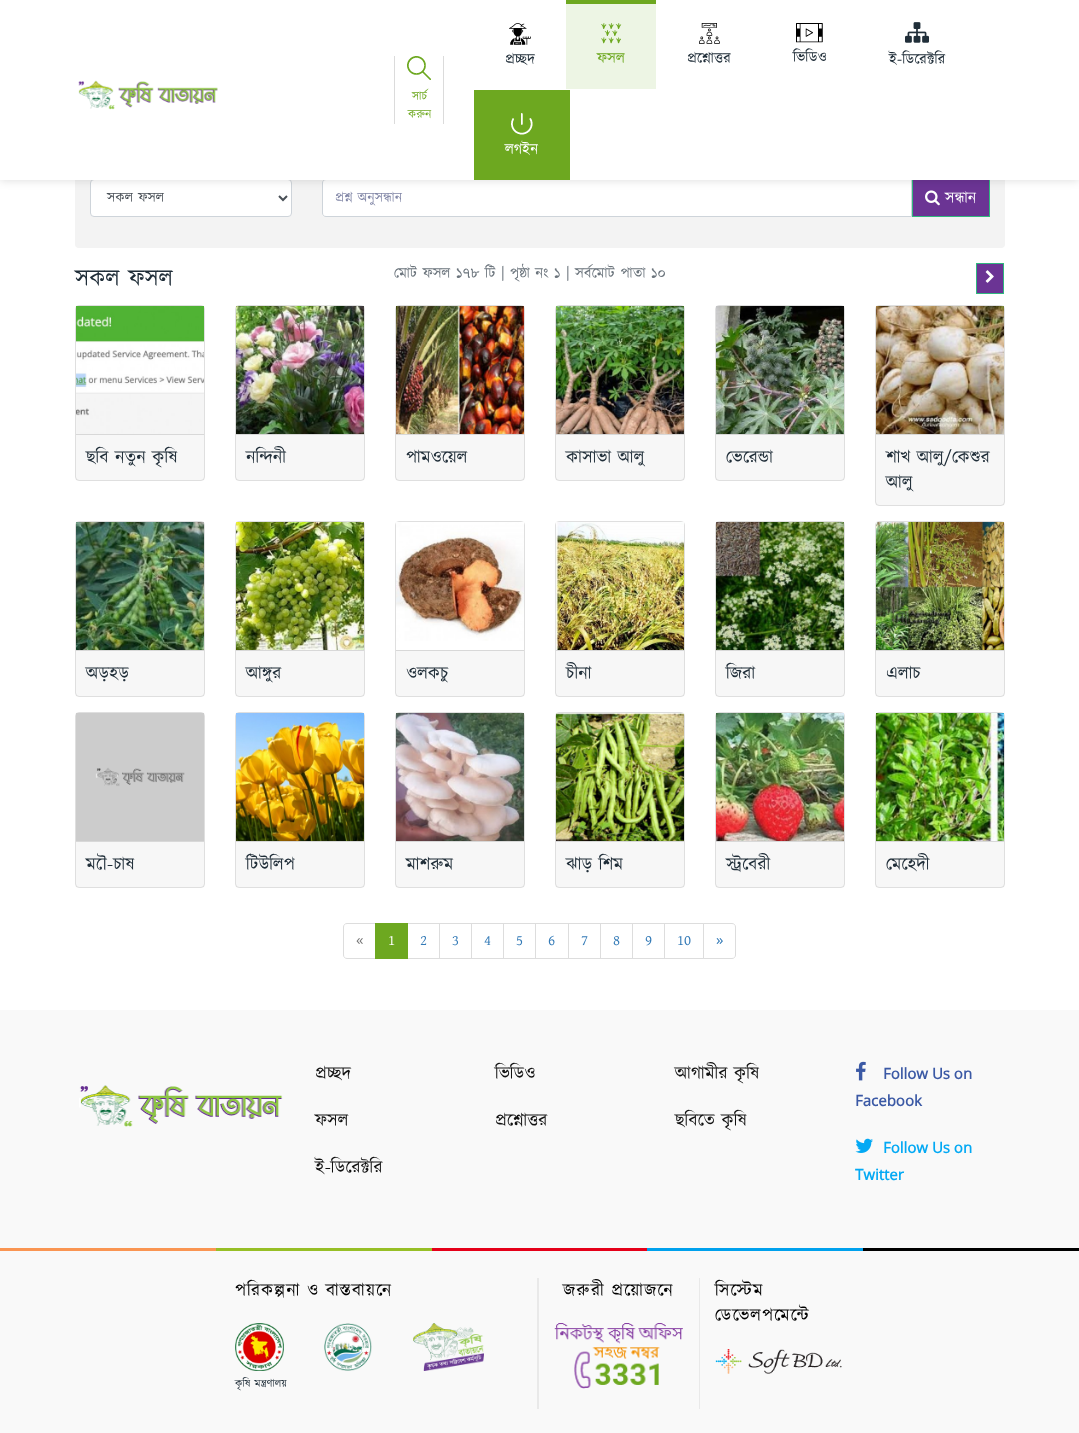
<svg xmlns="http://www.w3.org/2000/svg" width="1079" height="1433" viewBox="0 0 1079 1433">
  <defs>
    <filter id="blur1" x="-50%" y="-200%" width="200%" height="500%"><feGaussianBlur stdDeviation="5"/></filter>
  </defs>
  <rect width="100%" height="100%" fill="#ffffff"/>
  <rect x="75" y="164" width="930" height="84" rx="4" fill="#f3f3f3"/>
  <rect x="90.5" y="179.5" width="201" height="37" rx="3.5" fill="#ffffff" stroke="#ced4da"/>
  <path d="M279 196L283 200L287 196" fill="none" stroke="#495057" stroke-width="2"/>
  <path d="M326 179.5H911.5V216.5H326C324 216.5 322.5 215 322.5 213V183C322.5 181 324 179.5 326 179.5Z" fill="#ffffff" stroke="#ced4da"/>
  <rect x="912.5" y="179.5" width="77" height="37" fill="#6b3494" stroke="#30b77f"/>
  <image x="925" y="190" width="15" height="16" href="img9.png"/>
  <rect x="0" y="0" width="1079" height="180" fill="#000000" fill-opacity="0.15" filter="url(#blur1)"/>
  <rect x="0" y="0" width="1079" height="180" fill="#ffffff"/>
  <image x="78" y="80" width="140" height="30" href="img1.png"/>
  <rect x="443" y="56" width="1" height="68" fill="#dbdbdb"/>
  <rect x="394" y="56" width="1" height="68" fill="#dbdbdb"/>
  <image x="407" y="56" width="24" height="24" href="img2.png"/>
  <text x="412" y="100" font-family="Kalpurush" font-size="12" fill="#6da820">সার্চ</text>
  <text x="408" y="118" font-family="Kalpurush" font-size="12" fill="#6da820">করুন</text>
  <image x="509" y="23" width="22" height="22" href="img3.png"/>
  <text x="505" y="64" font-family="Kalpurush" font-size="15" fill="#202e39">প্রচ্ছদ</text>
  <rect x="566" y="4" width="90" height="85" fill="#edf5e4"/>
  <rect x="566" y="0" width="90" height="4" fill="#6da820"/>
  <image x="601" y="23" width="21" height="21" href="img4.png"/>
  <text x="597" y="63" font-family="Kalpurush" font-size="15" fill="#6da820">ফসল</text>
  <image x="699" y="23" width="21" height="21" href="img5.png"/>
  <text x="687" y="63" font-family="Kalpurush" font-size="15" fill="#202e39">প্রশ্নোত্তর</text>
  <image x="796" y="23" width="27" height="20" href="img6.png"/>
  <text x="793" y="62" font-family="Kalpurush" font-size="15" fill="#202e39">ভিডিও</text>
  <image x="905" y="22" width="24" height="21" href="img7.png"/>
  <text x="889" y="64" font-family="Kalpurush" font-size="15" fill="#202e39">ই-ডিরেক্টরি</text>
  <rect x="474" y="90" width="96" height="90" fill="#6da820"/>
  <image x="511" y="113" width="22" height="22" href="img8.png"/>
  <text x="505" y="154" font-family="Kalpurush" font-size="15" fill="#ffffff">লগইন</text>
  <text x="107" y="202" font-family="Kalpurush" font-size="14" fill="#495057">সকল ফসল</text>
  <text x="335" y="202" font-family="Kalpurush" font-size="14" fill="#8287a7">প্রশ্ন অনুসন্ধান</text>
  <text x="945" y="203" font-family="Kalpurush" font-size="16" fill="#ffffff">সন্ধান</text>
  <text x="75" y="286" font-family="Kalpurush" font-size="24" fill="#202e39">সকল ফসল</text>
  <text x="394" y="278" font-family="Kalpurush" font-size="15" fill="#6c757d">মোট ফসল ১৭৮ টি | পৃষ্ঠা নং ১ | সর্বমোট পাতা ১০</text>
  <rect x="976.5" y="263.5" width="27" height="30" fill="#6b3494" stroke="#30b77f"/>
  <image x="985" y="270" width="9" height="13" href="img10.png"/>
  <rect x="75.5" y="305.5" width="129" height="175" rx="3.5" fill="none" stroke="#dfdfdf"/>
  <image x="76" y="306" width="128" height="128" href="img11.png"/>
  <rect x="76" y="435" width="128" height="45" fill="#000000" fill-opacity="0.03"/>
  <rect x="76" y="434" width="128" height="1" fill="#d8d8d8"/>
  <text x="86" y="463" font-family="Kalpurush" font-size="18" fill="#202e39">ছবি নতুন কৃষি</text>
  <rect x="235.5" y="305.5" width="129" height="175" rx="3.5" fill="none" stroke="#dfdfdf"/>
  <image x="236" y="306" width="128" height="128" href="img12.png"/>
  <rect x="236" y="435" width="128" height="45" fill="#000000" fill-opacity="0.03"/>
  <rect x="236" y="434" width="128" height="1" fill="#d8d8d8"/>
  <text x="246" y="463" font-family="Kalpurush" font-size="18" fill="#202e39">নন্দিনী</text>
  <rect x="395.5" y="305.5" width="129" height="175" rx="3.5" fill="none" stroke="#dfdfdf"/>
  <image x="396" y="306" width="128" height="128" href="img13.png"/>
  <rect x="396" y="435" width="128" height="45" fill="#000000" fill-opacity="0.03"/>
  <rect x="396" y="434" width="128" height="1" fill="#d8d8d8"/>
  <text x="406" y="463" font-family="Kalpurush" font-size="18" fill="#202e39">পামওয়েল</text>
  <rect x="555.5" y="305.5" width="129" height="175" rx="3.5" fill="none" stroke="#dfdfdf"/>
  <image x="556" y="306" width="128" height="128" href="img14.png"/>
  <rect x="556" y="435" width="128" height="45" fill="#000000" fill-opacity="0.03"/>
  <rect x="556" y="434" width="128" height="1" fill="#d8d8d8"/>
  <text x="566" y="463" font-family="Kalpurush" font-size="18" fill="#202e39">কাসাভা আলু</text>
  <rect x="715.5" y="305.5" width="129" height="175" rx="3.5" fill="none" stroke="#dfdfdf"/>
  <image x="716" y="306" width="128" height="128" href="img15.png"/>
  <rect x="716" y="435" width="128" height="45" fill="#000000" fill-opacity="0.03"/>
  <rect x="716" y="434" width="128" height="1" fill="#d8d8d8"/>
  <text x="726" y="463" font-family="Kalpurush" font-size="18" fill="#202e39">ভেরেন্ডা</text>
  <rect x="875.5" y="305.5" width="129" height="200" rx="3.5" fill="none" stroke="#dfdfdf"/>
  <image x="876" y="306" width="128" height="128" href="img16.png"/>
  <rect x="876" y="435" width="128" height="70" fill="#000000" fill-opacity="0.03"/>
  <rect x="876" y="434" width="128" height="1" fill="#d8d8d8"/>
  <text x="886" y="463" font-family="Kalpurush" font-size="18" fill="#202e39">শাখ আলু/কেশুর</text>
  <text x="886" y="488" font-family="Kalpurush" font-size="18" fill="#202e39">আলু</text>
  <rect x="75.5" y="521.5" width="129" height="175" rx="3.5" fill="none" stroke="#dfdfdf"/>
  <image x="76" y="522" width="128" height="128" href="img17.png"/>
  <rect x="76" y="651" width="128" height="45" fill="#000000" fill-opacity="0.03"/>
  <rect x="76" y="650" width="128" height="1" fill="#d8d8d8"/>
  <text x="86" y="679" font-family="Kalpurush" font-size="18" fill="#202e39">অড়হড়</text>
  <rect x="235.5" y="521.5" width="129" height="175" rx="3.5" fill="none" stroke="#dfdfdf"/>
  <image x="236" y="522" width="128" height="128" href="img18.png"/>
  <rect x="236" y="651" width="128" height="45" fill="#000000" fill-opacity="0.03"/>
  <rect x="236" y="650" width="128" height="1" fill="#d8d8d8"/>
  <text x="246" y="679" font-family="Kalpurush" font-size="18" fill="#202e39">আঙ্গুর</text>
  <rect x="395.5" y="521.5" width="129" height="175" rx="3.5" fill="none" stroke="#dfdfdf"/>
  <image x="396" y="522" width="128" height="119" href="img19.png"/>
  <rect x="396" y="651" width="128" height="45" fill="#000000" fill-opacity="0.03"/>
  <rect x="396" y="650" width="128" height="1" fill="#d8d8d8"/>
  <text x="406" y="679" font-family="Kalpurush" font-size="18" fill="#202e39">ওলকচু</text>
  <rect x="555.5" y="521.5" width="129" height="175" rx="3.5" fill="none" stroke="#dfdfdf"/>
  <image x="556" y="522" width="128" height="128" href="img20.png"/>
  <rect x="556" y="651" width="128" height="45" fill="#000000" fill-opacity="0.03"/>
  <rect x="556" y="650" width="128" height="1" fill="#d8d8d8"/>
  <text x="566" y="679" font-family="Kalpurush" font-size="18" fill="#202e39">চীনা</text>
  <rect x="715.5" y="521.5" width="129" height="175" rx="3.5" fill="none" stroke="#dfdfdf"/>
  <image x="716" y="522" width="128" height="128" href="img21.png"/>
  <rect x="716" y="651" width="128" height="45" fill="#000000" fill-opacity="0.03"/>
  <rect x="716" y="650" width="128" height="1" fill="#d8d8d8"/>
  <text x="726" y="679" font-family="Kalpurush" font-size="18" fill="#202e39">জিরা</text>
  <rect x="875.5" y="521.5" width="129" height="175" rx="3.5" fill="none" stroke="#dfdfdf"/>
  <image x="876" y="522" width="128" height="128" href="img22.png"/>
  <rect x="876" y="651" width="128" height="45" fill="#000000" fill-opacity="0.03"/>
  <rect x="876" y="650" width="128" height="1" fill="#d8d8d8"/>
  <text x="886" y="679" font-family="Kalpurush" font-size="18" fill="#202e39">এলাচ</text>
  <rect x="75.5" y="712.5" width="129" height="175" rx="3.5" fill="none" stroke="#dfdfdf"/>
  <image x="76" y="713" width="128" height="128" href="img23.png"/>
  <rect x="76" y="842" width="128" height="45" fill="#000000" fill-opacity="0.03"/>
  <rect x="76" y="841" width="128" height="1" fill="#d8d8d8"/>
  <text x="86" y="870" font-family="Kalpurush" font-size="18" fill="#202e39">মৌ-চাষ</text>
  <rect x="235.5" y="712.5" width="129" height="175" rx="3.5" fill="none" stroke="#dfdfdf"/>
  <image x="236" y="713" width="128" height="128" href="img24.png"/>
  <rect x="236" y="842" width="128" height="45" fill="#000000" fill-opacity="0.03"/>
  <rect x="236" y="841" width="128" height="1" fill="#d8d8d8"/>
  <text x="246" y="870" font-family="Kalpurush" font-size="18" fill="#202e39">টিউলিপ</text>
  <rect x="395.5" y="712.5" width="129" height="175" rx="3.5" fill="none" stroke="#dfdfdf"/>
  <image x="396" y="713" width="128" height="128" href="img25.png"/>
  <rect x="396" y="842" width="128" height="45" fill="#000000" fill-opacity="0.03"/>
  <rect x="396" y="841" width="128" height="1" fill="#d8d8d8"/>
  <text x="406" y="870" font-family="Kalpurush" font-size="18" fill="#202e39">মাশরুম</text>
  <rect x="555.5" y="712.5" width="129" height="175" rx="3.5" fill="none" stroke="#dfdfdf"/>
  <image x="556" y="713" width="128" height="128" href="img26.png"/>
  <rect x="556" y="842" width="128" height="45" fill="#000000" fill-opacity="0.03"/>
  <rect x="556" y="841" width="128" height="1" fill="#d8d8d8"/>
  <text x="566" y="870" font-family="Kalpurush" font-size="18" fill="#202e39">ঝাড় শিম</text>
  <rect x="715.5" y="712.5" width="129" height="175" rx="3.5" fill="none" stroke="#dfdfdf"/>
  <image x="716" y="713" width="128" height="128" href="img27.png"/>
  <rect x="716" y="842" width="128" height="45" fill="#000000" fill-opacity="0.03"/>
  <rect x="716" y="841" width="128" height="1" fill="#d8d8d8"/>
  <text x="726" y="870" font-family="Kalpurush" font-size="18" fill="#202e39">স্ট্রবেরী</text>
  <rect x="875.5" y="712.5" width="129" height="175" rx="3.5" fill="none" stroke="#dfdfdf"/>
  <image x="876" y="713" width="128" height="128" href="img28.png"/>
  <rect x="876" y="842" width="128" height="45" fill="#000000" fill-opacity="0.03"/>
  <rect x="876" y="841" width="128" height="1" fill="#d8d8d8"/>
  <text x="886" y="870" font-family="Kalpurush" font-size="18" fill="#202e39">মেহেদী</text>
  <path d="M347 923.5H375.5V958.5H347C345 958.5 343.5 957 343.5 955V927C343.5 925 345 923.5 347 923.5Z" fill="none" stroke="#dddddd"/>
  <text x="356" y="945" font-family="Open Sans" font-size="15" fill="#777777">«</text>
  <rect x="407.5" y="923.5" width="32" height="35" fill="none" stroke="#dddddd"/>
  <rect x="375" y="923" width="33" height="36" fill="#6da820"/>
  <text x="388" y="945" font-family="Kalpurush" font-size="15" fill="#ffffff">1</text>
  <text x="420" y="945" font-family="Kalpurush" font-size="15" fill="#337ab7">2</text>
  <rect x="439.5" y="923.5" width="32" height="35" fill="none" stroke="#dddddd"/>
  <text x="452" y="945" font-family="Kalpurush" font-size="15" fill="#337ab7">3</text>
  <rect x="471.5" y="923.5" width="32" height="35" fill="none" stroke="#dddddd"/>
  <text x="484" y="945" font-family="Kalpurush" font-size="15" fill="#337ab7">4</text>
  <rect x="503.5" y="923.5" width="32" height="35" fill="none" stroke="#dddddd"/>
  <text x="516" y="945" font-family="Kalpurush" font-size="15" fill="#337ab7">5</text>
  <rect x="535.5" y="923.5" width="33" height="35" fill="none" stroke="#dddddd"/>
  <text x="548" y="945" font-family="Kalpurush" font-size="15" fill="#337ab7">6</text>
  <rect x="568.5" y="923.5" width="32" height="35" fill="none" stroke="#dddddd"/>
  <text x="581" y="945" font-family="Kalpurush" font-size="15" fill="#337ab7">7</text>
  <rect x="600.5" y="923.5" width="32" height="35" fill="none" stroke="#dddddd"/>
  <text x="613" y="945" font-family="Kalpurush" font-size="15" fill="#337ab7">8</text>
  <rect x="632.5" y="923.5" width="32" height="35" fill="none" stroke="#dddddd"/>
  <text x="645" y="945" font-family="Kalpurush" font-size="15" fill="#337ab7">9</text>
  <rect x="664.5" y="923.5" width="39" height="35" fill="none" stroke="#dddddd"/>
  <text x="677" y="945" font-family="Kalpurush" font-size="15" fill="#337ab7">10</text>
  <path d="M703.5 923.5H732C734 923.5 735.5 925 735.5 927V955C735.5 957 734 958.5 732 958.5H703.5Z" fill="#ffffff" stroke="#dddddd"/>
  <text x="716" y="945" font-family="Open Sans" font-size="15" fill="#337ab7">»</text>
  <rect x="0" y="1010" width="1079" height="423" fill="#f9f9f9"/>
  <image x="79" y="1085" width="204" height="42" href="img29.png"/>
  <text x="315" y="1079" font-family="Kalpurush" font-size="18" fill="#111111">প্রচ্ছদ</text>
  <text x="315" y="1126" font-family="Kalpurush" font-size="18" fill="#111111">ফসল</text>
  <text x="315" y="1173" font-family="Kalpurush" font-size="18" fill="#111111">ই-ডিরেক্টরি</text>
  <text x="495" y="1079" font-family="Kalpurush" font-size="18" fill="#111111">ভিডিও</text>
  <text x="495" y="1126" font-family="Kalpurush" font-size="18" fill="#111111">প্রশ্নোত্তর</text>
  <text x="675" y="1079" font-family="Kalpurush" font-size="18" fill="#111111">আগামীর কৃষি</text>
  <text x="675" y="1126" font-family="Kalpurush" font-size="18" fill="#111111">ছবিতে কৃষি</text>
  <image x="856" y="1061" width="10" height="20" href="img30.png"/>
  <text x="883" y="1079" font-family="Open Sans" font-size="15" font-weight="bold" fill="#3b59a5">Follow Us on</text>
  <text x="855" y="1106" font-family="Open Sans" font-size="15" font-weight="bold" fill="#3b59a5">Facebook</text>
  <image x="855" y="1138" width="18" height="15" href="img31.png"/>
  <text x="883" y="1153" font-family="Open Sans" font-size="15" font-weight="bold" fill="#03a9f4">Follow Us on</text>
  <text x="855" y="1180" font-family="Open Sans" font-size="15" font-weight="bold" fill="#03a9f4">Twitter</text>
  <rect x="0" y="1248" width="216" height="3" fill="#fa9552"/>
  <rect x="216" y="1248" width="216" height="3" fill="#97bf26"/>
  <rect x="432" y="1248" width="215" height="3" fill="#e50019"/>
  <rect x="647" y="1248" width="216" height="3" fill="#00a1ed"/>
  <rect x="863" y="1248" width="216" height="3" fill="#000000"/>
  <text x="235" y="1296" word-spacing="-1" font-family="Kalpurush" font-size="18" letter-spacing="1" fill="#000000">পরিকল্পনা ও বাস্তবায়নে</text>
  <image x="324" y="1323" width="48" height="48" href="img32.png"/>
  <image x="413" y="1323" width="71" height="48" href="img33.png"/>
  <image x="235" y="1323" width="49" height="48" href="img34.png"/>
  <text x="235" y="1387" font-family="Kalpurush" font-size="11" fill="#202e39">কৃষি মন্ত্রণালয়</text>
  <rect x="537" y="1278" width="2" height="131" fill="#e9e9e9"/>
  <text x="563" y="1296" word-spacing="-1" font-family="Kalpurush" font-size="18" letter-spacing="1" fill="#000000">জরুরী প্রয়োজনে</text>
  <image x="554" y="1323" width="129" height="66" href="img35.png"/>
  <rect x="699" y="1278" width="1" height="131" fill="#e9e9e9"/>
  <text x="715" y="1296" font-family="Kalpurush" font-size="18" letter-spacing="1" fill="#000000">সিস্টেম</text>
  <text x="715" y="1321" font-family="Kalpurush" font-size="18" letter-spacing="1" fill="#000000">ডেভেলপমেন্টে</text>
  <image x="715" y="1349" width="127" height="25" href="img36.png"/>
</svg>
